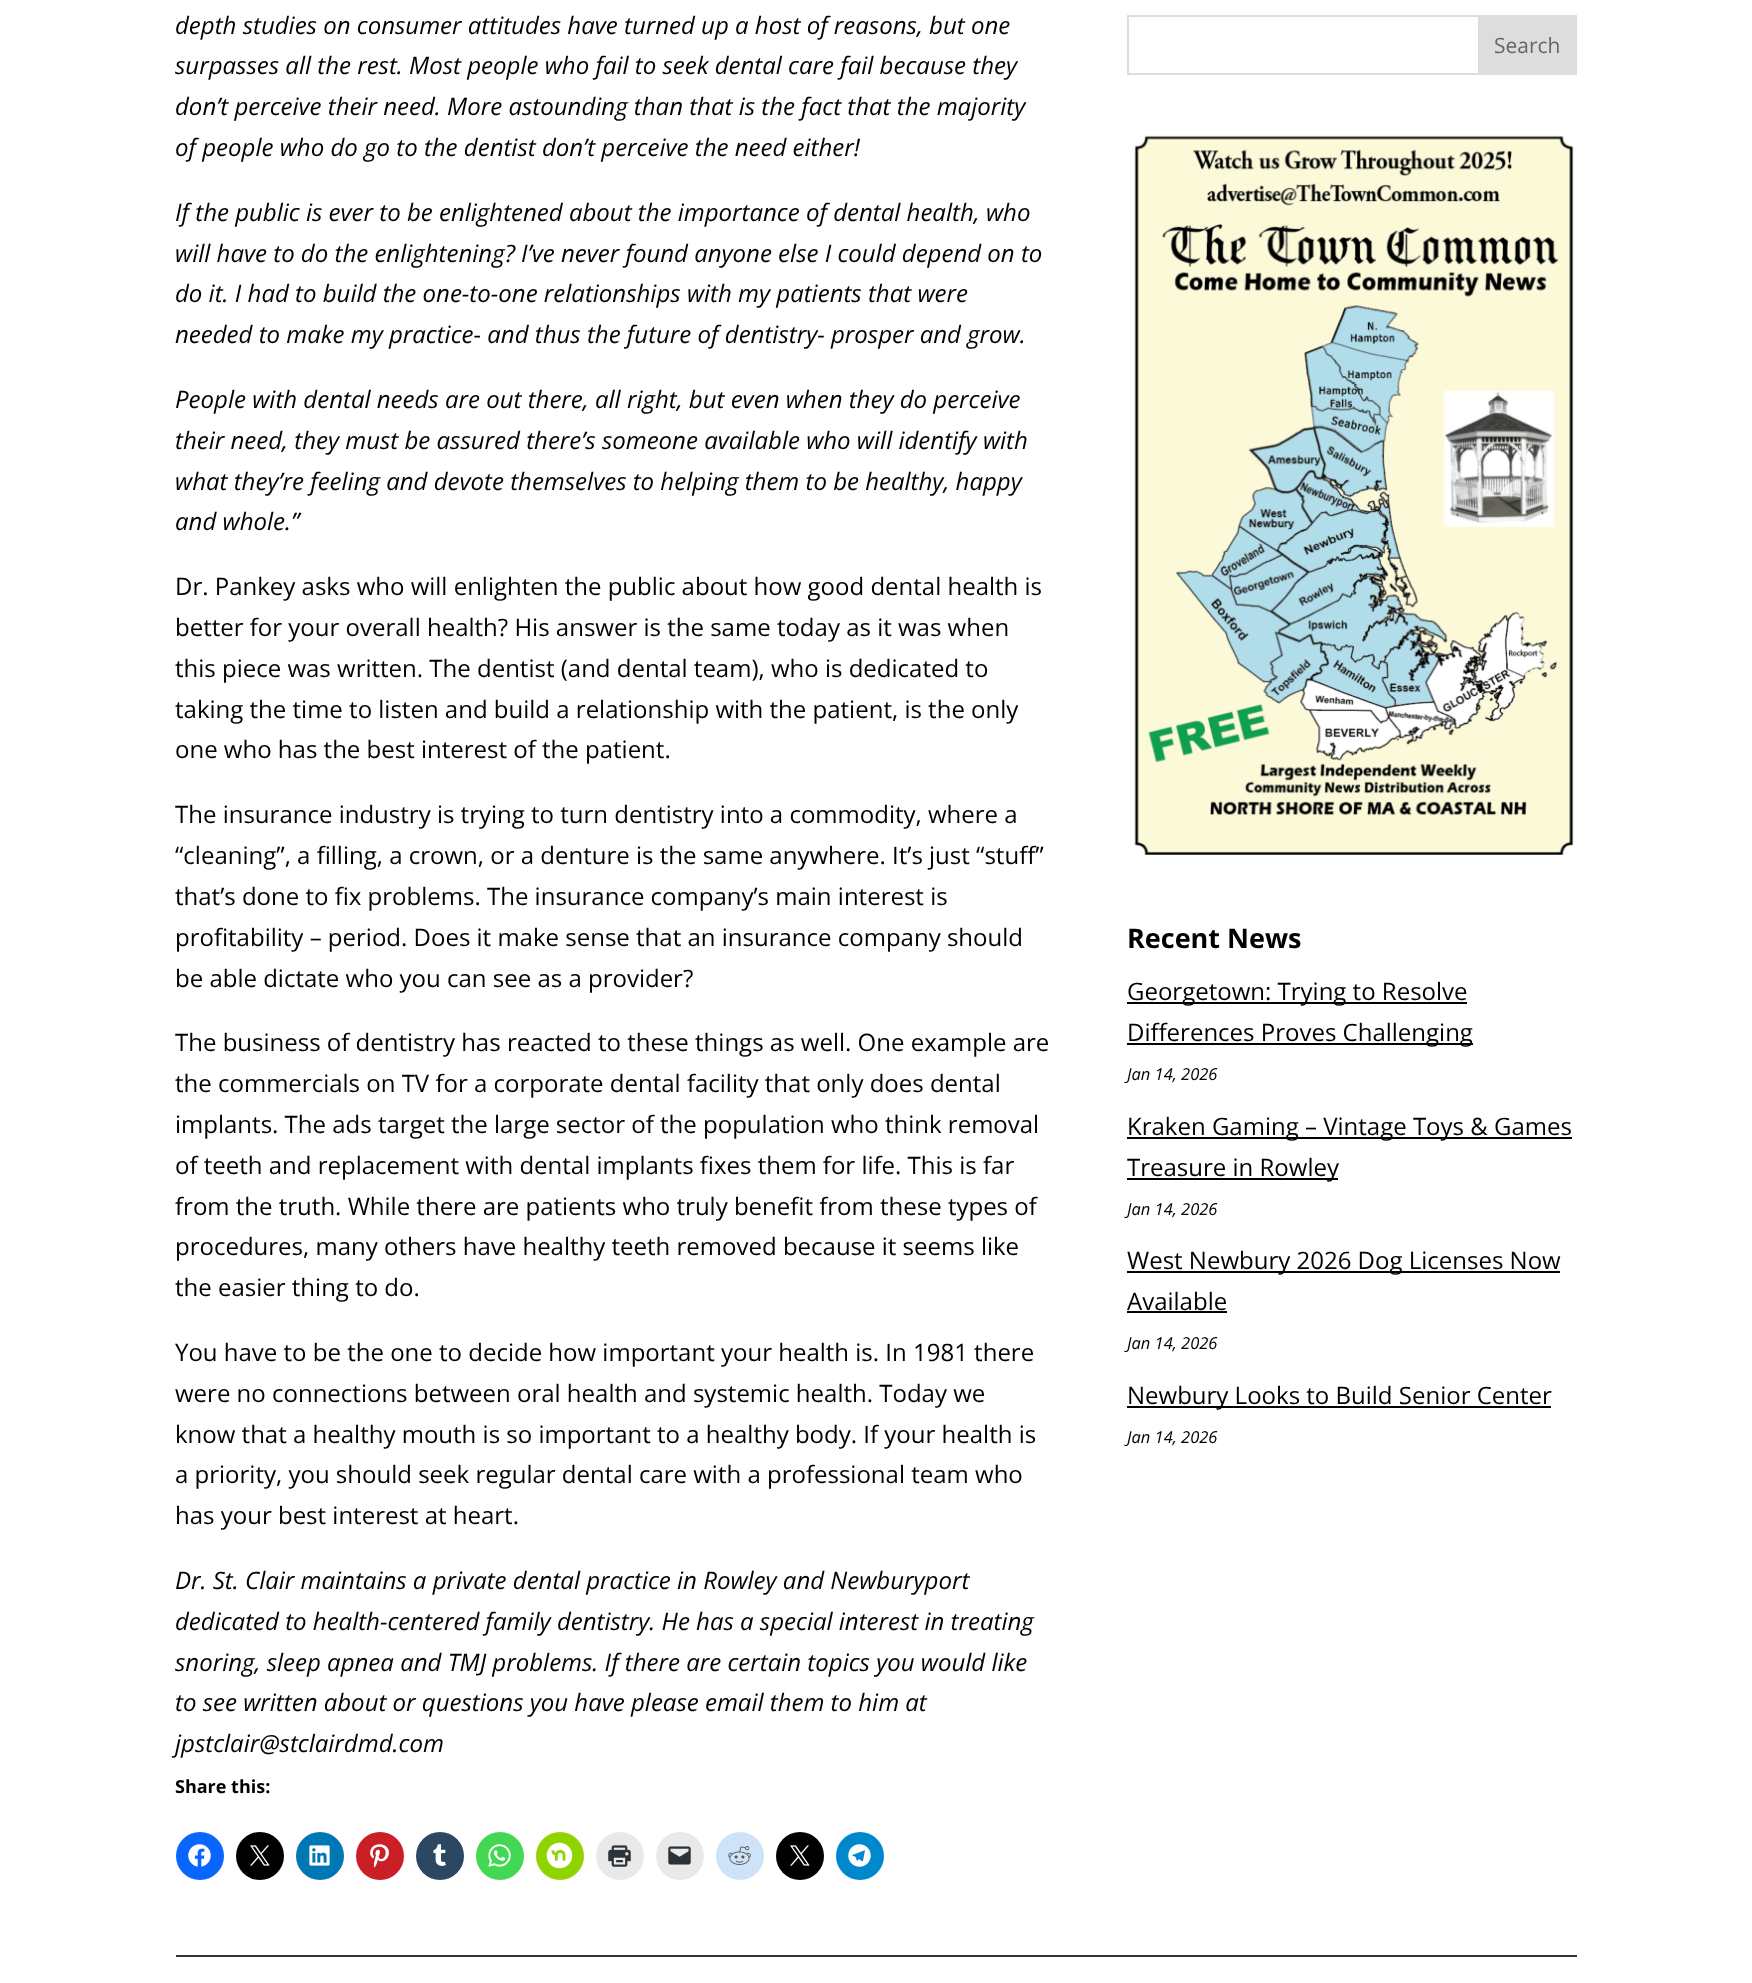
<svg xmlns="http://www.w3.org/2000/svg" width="1752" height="1983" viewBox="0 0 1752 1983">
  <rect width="100%" height="100%" fill="#ffffff"/>
  <text x="175" y="34" font-family="Open Sans" font-size="24" font-style="italic" fill="#000000">depth studies on consumer attitudes have turned up a host of reasons, but one</text>
  <text x="175" y="74" font-family="Open Sans" font-size="24" font-style="italic" fill="#000000">surpasses all the rest. Most people who fail to seek dental care fail because they</text>
  <text x="175" y="115" font-family="Open Sans" font-size="24" font-style="italic" fill="#000000">don’t perceive their need. More astounding than that is the fact that the majority</text>
  <text x="175" y="156" font-family="Open Sans" font-size="24" font-style="italic" fill="#000000">of people who do go to the dentist don’t perceive the need either!</text>
  <text x="175" y="221" font-family="Open Sans" font-size="24" font-style="italic" fill="#000000">If the public is ever to be enlightened about the importance of dental health, who</text>
  <text x="175" y="262" font-family="Open Sans" font-size="24" font-style="italic" fill="#000000">will have to do the enlightening? I’ve never found anyone else I could depend on to</text>
  <text x="175" y="302" font-family="Open Sans" font-size="24" font-style="italic" fill="#000000">do it. I had to build the one-to-one relationships with my patients that were</text>
  <text x="175" y="343" font-family="Open Sans" font-size="24" font-style="italic" fill="#000000">needed to make my practice- and thus the future of dentistry- prosper and grow.</text>
  <text x="175" y="408" font-family="Open Sans" font-size="24" font-style="italic" fill="#000000">People with dental needs are out there, all right, but even when they do perceive</text>
  <text x="175" y="449" font-family="Open Sans" font-size="24" font-style="italic" fill="#000000">their need, they must be assured there’s someone available who will identify with</text>
  <text x="175" y="490" font-family="Open Sans" font-size="24" font-style="italic" fill="#000000">what they’re feeling and devote themselves to helping them to be healthy, happy</text>
  <text x="175" y="530" font-family="Open Sans" font-size="24" font-style="italic" fill="#000000">and whole.”</text>
  <text x="175" y="595" font-family="Open Sans" font-size="24" fill="#000000">Dr. Pankey asks who will enlighten the public about how good dental health is</text>
  <text x="175" y="636" font-family="Open Sans" font-size="24" fill="#000000">better for your overall health? His answer is the same today as it was when</text>
  <text x="175" y="677" font-family="Open Sans" font-size="24" fill="#000000">this piece was written. The dentist (and dental team), who is dedicated to</text>
  <text x="175" y="718" font-family="Open Sans" font-size="24" fill="#000000">taking the time to listen and build a relationship with the patient, is the only</text>
  <text x="175" y="758" font-family="Open Sans" font-size="24" fill="#000000">one who has the best interest of the patient.</text>
  <text x="175" y="823" font-family="Open Sans" font-size="24" fill="#000000">The insurance industry is trying to turn dentistry into a commodity, where a</text>
  <text x="175" y="864" font-family="Open Sans" font-size="24" fill="#000000">“cleaning”, a filling, a crown, or a denture is the same anywhere. It’s just “stuff”</text>
  <text x="175" y="905" font-family="Open Sans" font-size="24" fill="#000000">that’s done to fix problems. The insurance company’s main interest is</text>
  <text x="175" y="946" font-family="Open Sans" font-size="24" fill="#000000">profitability – period. Does it make sense that an insurance company should</text>
  <text x="175" y="987" font-family="Open Sans" font-size="24" fill="#000000">be able dictate who you can see as a provider?</text>
  <text x="175" y="1051" font-family="Open Sans" font-size="24" fill="#000000">The business of dentistry has reacted to these things as well. One example are</text>
  <text x="175" y="1092" font-family="Open Sans" font-size="24" fill="#000000">the commercials on TV for a corporate dental facility that only does dental</text>
  <text x="175" y="1133" font-family="Open Sans" font-size="24" fill="#000000">implants. The ads target the large sector of the population who think removal</text>
  <text x="175" y="1174" font-family="Open Sans" font-size="24" fill="#000000">of teeth and replacement with dental implants fixes them for life. This is far</text>
  <text x="175" y="1215" font-family="Open Sans" font-size="24" fill="#000000">from the truth. While there are patients who truly benefit from these types of</text>
  <text x="175" y="1255" font-family="Open Sans" font-size="24" fill="#000000">procedures, many others have healthy teeth removed because it seems like</text>
  <text x="175" y="1296" font-family="Open Sans" font-size="24" fill="#000000">the easier thing to do.</text>
  <text x="175" y="1361" font-family="Open Sans" font-size="24" fill="#000000">You have to be the one to decide how important your health is. In 1981 there</text>
  <text x="175" y="1402" font-family="Open Sans" font-size="24" fill="#000000">were no connections between oral health and systemic health. Today we</text>
  <text x="175" y="1443" font-family="Open Sans" font-size="24" fill="#000000">know that a healthy mouth is so important to a healthy body. If your health is</text>
  <text x="175" y="1483" font-family="Open Sans" font-size="24" fill="#000000">a priority, you should seek regular dental care with a professional team who</text>
  <text x="175" y="1524" font-family="Open Sans" font-size="24" fill="#000000">has your best interest at heart.</text>
  <text x="175" y="1589" font-family="Open Sans" font-size="24" font-style="italic" fill="#000000">Dr. St. Clair maintains a private dental practice in Rowley and Newburyport</text>
  <text x="175" y="1630" font-family="Open Sans" font-size="24" font-style="italic" fill="#000000">dedicated to health-centered family dentistry. He has a special interest in treating</text>
  <text x="175" y="1671" font-family="Open Sans" font-size="24" font-style="italic" fill="#000000">snoring, sleep apnea and TMJ problems. If there are certain topics you would like</text>
  <text x="175" y="1711" font-family="Open Sans" font-size="24" font-style="italic" fill="#000000">to see written about or questions you have please email them to him at</text>
  <text x="175" y="1752" font-family="Open Sans" font-size="24" font-style="italic" fill="#000000">jpstclair@stclairdmd.com</text>
  <text x="175" y="1793" font-family="Open Sans" font-size="18" font-weight="bold" fill="#000000">Share this:</text>
  <circle cx="200" cy="1856" r="24" fill="#0866ff"/>
  <image x="188" y="1844" width="23" height="23" href="img1.png"/>
  <circle cx="260" cy="1856" r="24" fill="#000000"/>
  <image x="250" y="1845" width="20" height="21" href="img2.png"/>
  <circle cx="320" cy="1856" r="24" fill="#0077b5"/>
  <image x="309" y="1845" width="21" height="21" href="img3.png"/>
  <circle cx="380" cy="1856" r="24" fill="#ca1f27"/>
  <image x="370" y="1844" width="19" height="24" href="img4.png"/>
  <circle cx="440" cy="1856" r="24" fill="#2c4762"/>
  <image x="433" y="1844" width="13" height="22" href="img5.png"/>
  <circle cx="500" cy="1856" r="24" fill="#43d854"/>
  <image x="488" y="1844" width="23" height="23" href="img6.png"/>
  <circle cx="560" cy="1856" r="24" fill="#8ed500"/>
  <image x="546" y="1842" width="27" height="27" href="img7.png"/>
  <circle cx="620" cy="1856" r="24" fill="#e9e9e9"/>
  <image x="608" y="1845" width="23" height="22" href="img8.png"/>
  <circle cx="680" cy="1856" r="24" fill="#e9e9e9"/>
  <image x="668" y="1846" width="23" height="19" href="img9.png"/>
  <circle cx="740" cy="1856" r="24" fill="#cee3f8"/>
  <image x="728" y="1846" width="23" height="19" href="img10.png"/>
  <circle cx="800" cy="1856" r="24" fill="#000000"/>
  <image x="790" y="1845" width="20" height="21" href="img2.png"/>
  <circle cx="860" cy="1856" r="24" fill="#0088cc"/>
  <image x="848" y="1844" width="23" height="23" href="img11.png"/>
  <rect x="1128" y="16" width="448" height="58" fill="none" stroke="#dddddd" stroke-width="2"/>
  <rect x="1478" y="17" width="97" height="56" fill="#dddddd"/>
  <text x="1494" y="53" font-family="Open Sans" font-size="21" fill="#666666">Search</text>
  <image x="1134" y="135" width="440" height="720" href="img12.png"/>
  <text x="1127" y="948" font-family="Open Sans" font-size="27" font-weight="bold" fill="#000000">Recent News</text>
  <rect x="1127" y="1002" width="340" height="2" fill="#000000"/>
  <text x="1127" y="1000" font-family="Open Sans" font-size="24" fill="#000000">Georgetown: Trying to Resolve</text>
  <rect x="1127" y="1043" width="346" height="2" fill="#000000"/>
  <text x="1127" y="1041" font-family="Open Sans" font-size="24" fill="#000000">Differences Proves Challenging</text>
  <text x="1127" y="1080" font-family="Open Sans" font-size="16.5" font-style="italic" fill="#000000">Jan 14, 2026</text>
  <rect x="1127" y="1137" width="445" height="2" fill="#000000"/>
  <text x="1127" y="1135" font-family="Open Sans" font-size="24" fill="#000000">Kraken Gaming – Vintage Toys &amp; Games</text>
  <rect x="1127" y="1178" width="211" height="2" fill="#000000"/>
  <text x="1127" y="1176" font-family="Open Sans" font-size="24" fill="#000000">Treasure in Rowley</text>
  <text x="1127" y="1215" font-family="Open Sans" font-size="16.5" font-style="italic" fill="#000000">Jan 14, 2026</text>
  <rect x="1127" y="1271" width="433" height="2" fill="#000000"/>
  <text x="1127" y="1269" font-family="Open Sans" font-size="24" fill="#000000">West Newbury 2026 Dog Licenses Now</text>
  <text x="1127" y="1310" font-family="Open Sans" font-size="24" fill="#000000">Available</text>
  <rect x="1127" y="1311" width="100" height="2" fill="#000000"/>
  <text x="1127" y="1349" font-family="Open Sans" font-size="16.5" font-style="italic" fill="#000000">Jan 14, 2026</text>
  <rect x="1127" y="1406" width="424" height="2" fill="#000000"/>
  <text x="1127" y="1404" font-family="Open Sans" font-size="24" fill="#000000">Newbury Looks to Build Senior Center</text>
  <text x="1127" y="1443" font-family="Open Sans" font-size="16.5" font-style="italic" fill="#000000">Jan 14, 2026</text>
  <rect x="176" y="1955" width="1401" height="2" fill="#333333"/>
</svg>
